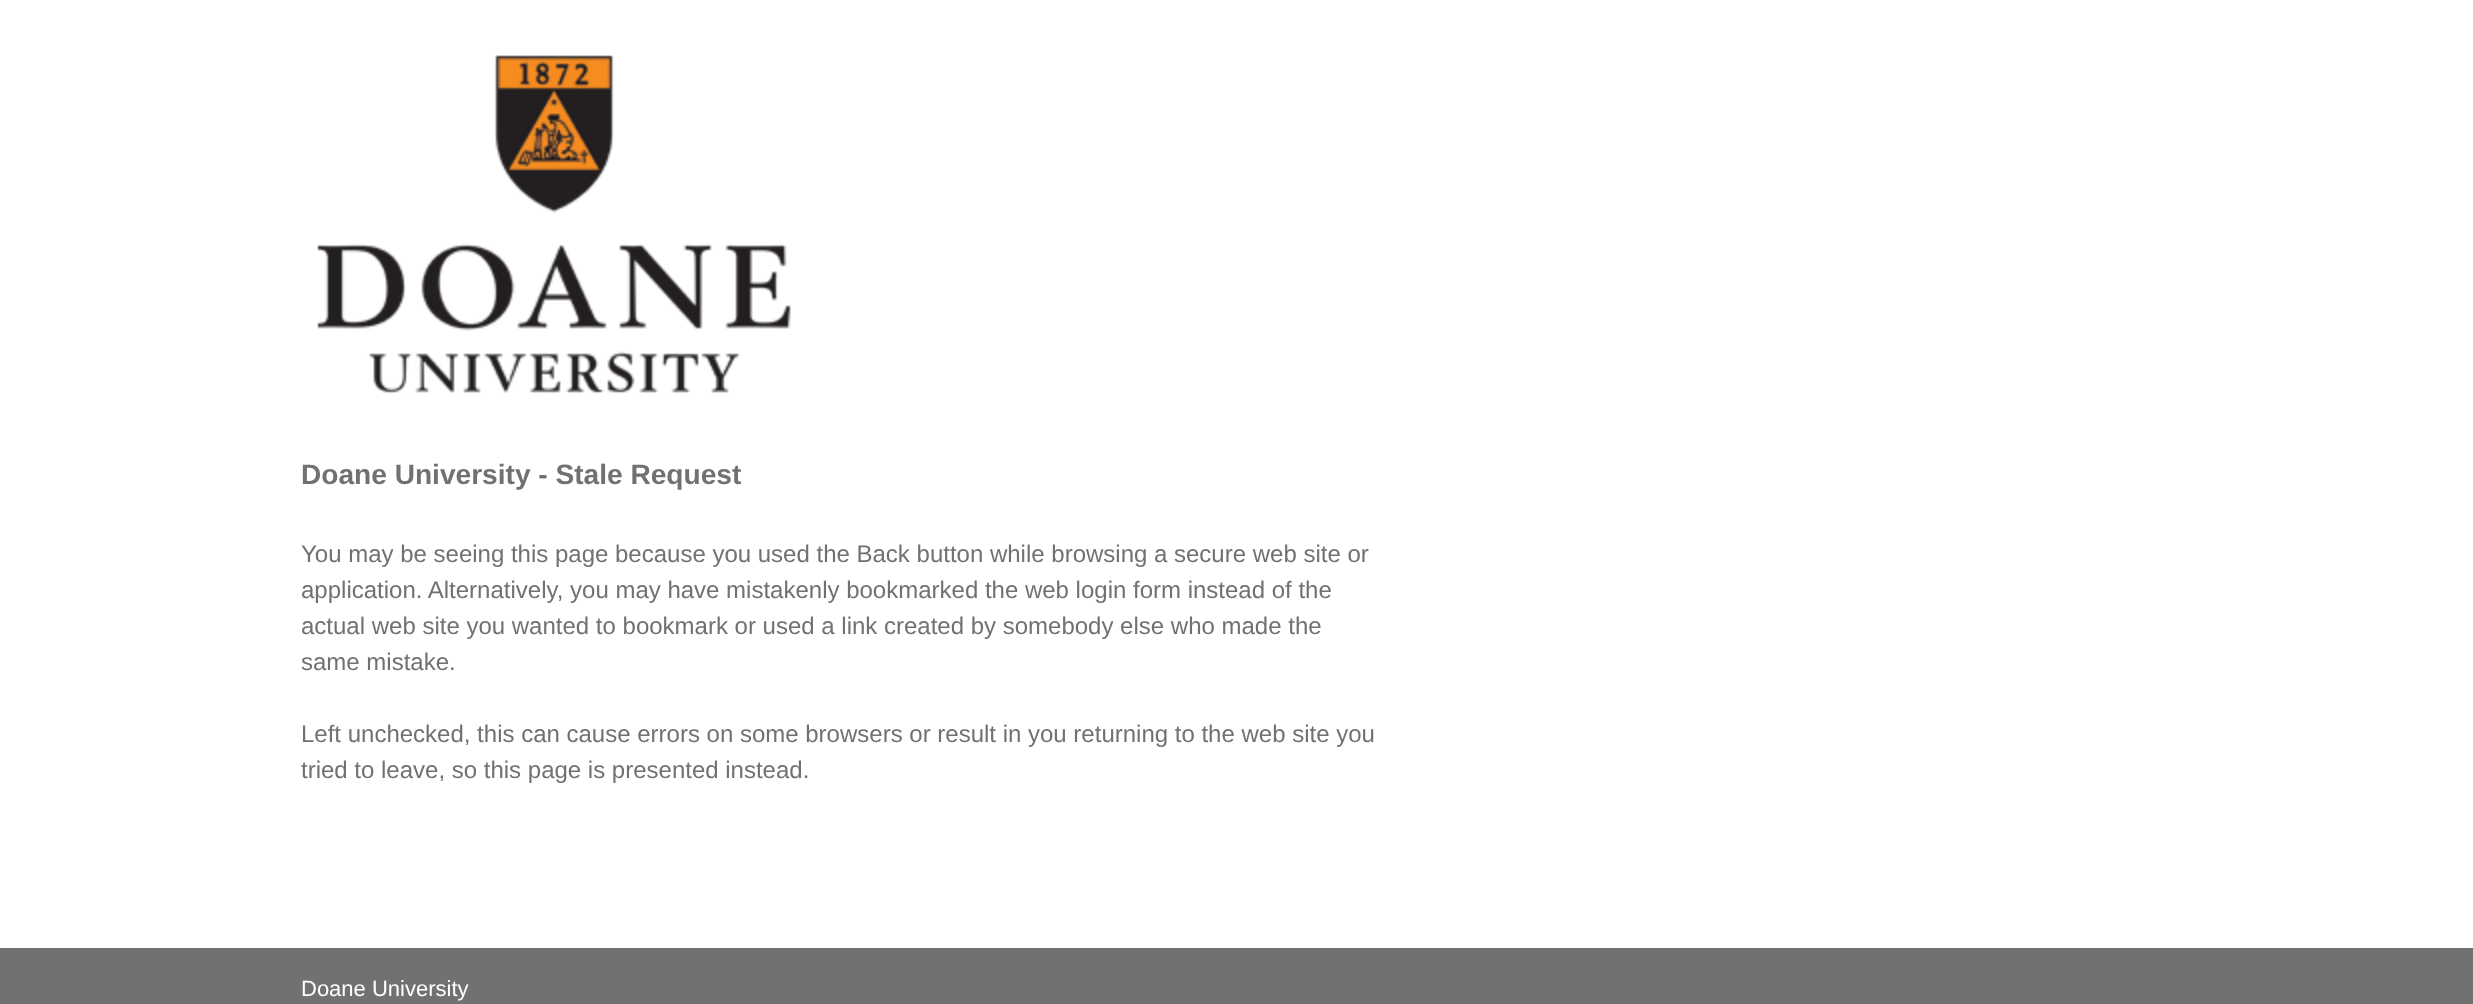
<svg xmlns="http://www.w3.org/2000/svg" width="2473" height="1004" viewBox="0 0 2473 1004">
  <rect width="100%" height="100%" fill="#ffffff"/>
  <image x="317" y="55" width="474" height="338" href="img1.png"/>
  <text x="301" y="484" font-family="Liberation Sans" font-size="28.1" font-weight="bold" fill="#717171">Doane University - Stale Request</text>
  <text x="301" y="562" font-family="Liberation Sans" font-size="24" fill="#717171">You may be seeing this page because you used the Back button while browsing a secure web site or</text>
  <text x="301" y="598" font-family="Liberation Sans" font-size="24" fill="#717171">application. Alternatively, you may have mistakenly bookmarked the web login form instead of the</text>
  <text x="301" y="634" font-family="Liberation Sans" font-size="24" fill="#717171">actual web site you wanted to bookmark or used a link created by somebody else who made the</text>
  <text x="301" y="670" font-family="Liberation Sans" font-size="24" fill="#717171">same mistake.</text>
  <text x="301" y="742" font-family="Liberation Sans" font-size="24" fill="#717171">Left unchecked, this can cause errors on some browsers or result in you returning to the web site you</text>
  <text x="301" y="778" font-family="Liberation Sans" font-size="24" fill="#717171">tried to leave, so this page is presented instead.</text>
  <rect x="0" y="948" width="2473" height="56" fill="#717171"/>
  <text x="301" y="996" font-family="Liberation Sans" font-size="22" fill="#ffffff">Doane University</text>
</svg>
